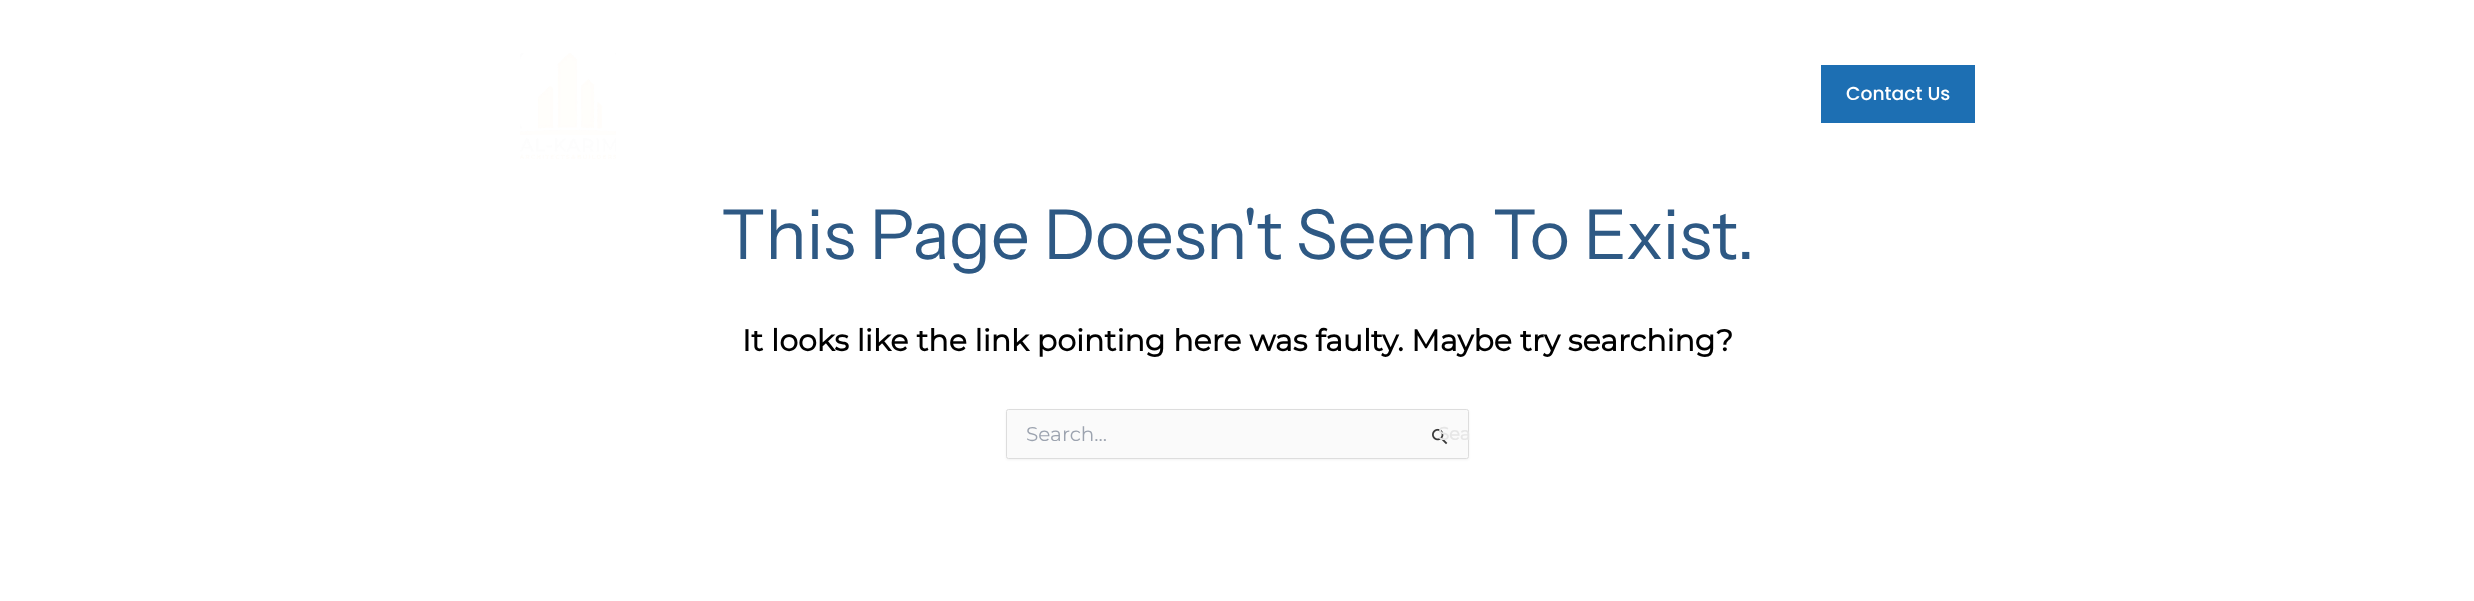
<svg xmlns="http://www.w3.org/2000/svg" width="2474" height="601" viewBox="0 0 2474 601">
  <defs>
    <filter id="blur1" x="-50%" y="-200%" width="200%" height="500%"><feGaussianBlur stdDeviation="1"/></filter>
  </defs>
  <rect width="100%" height="100%" fill="#ffffff"/>
  <image x="520" y="53" width="96" height="106" href="img1.png"/>
  <rect x="1821" y="65" width="154" height="58" fill="#1d6fb3"/>
  <text x="1846" y="100" font-family="Poppins" font-size="18.75" font-weight="500" fill="#ffffff">Contact Us</text>
  <text x="721" y="259" font-family="Instrument Sans" font-size="68.75" fill="#2e5984">This Page Doesn't Seem To Exist.</text>
  <text x="742" y="351" font-family="Montserrat" font-size="30" font-weight="bold" fill="#000000">It looks like the link pointing here was faulty. Maybe try searching?</text>
  <rect x="1006" y="410" width="463" height="50" rx="2.5" fill="#000000" fill-opacity="0.05" filter="url(#blur1)"/>
  <rect x="1006.5" y="409.5" width="462" height="49" rx="2" fill="#fafafa" stroke="#dddddd"/>
  <text x="1026" y="441" font-family="Montserrat" font-size="20" font-weight="100" fill="#9ca3af">Search...</text>
  <image x="1432" y="428" width="16" height="17" href="img2.png"/>
  <text x="1438" y="440" font-family="Montserrat" font-size="18" font-weight="bold" fill="#e6e6e6">Sea</text>
</svg>
